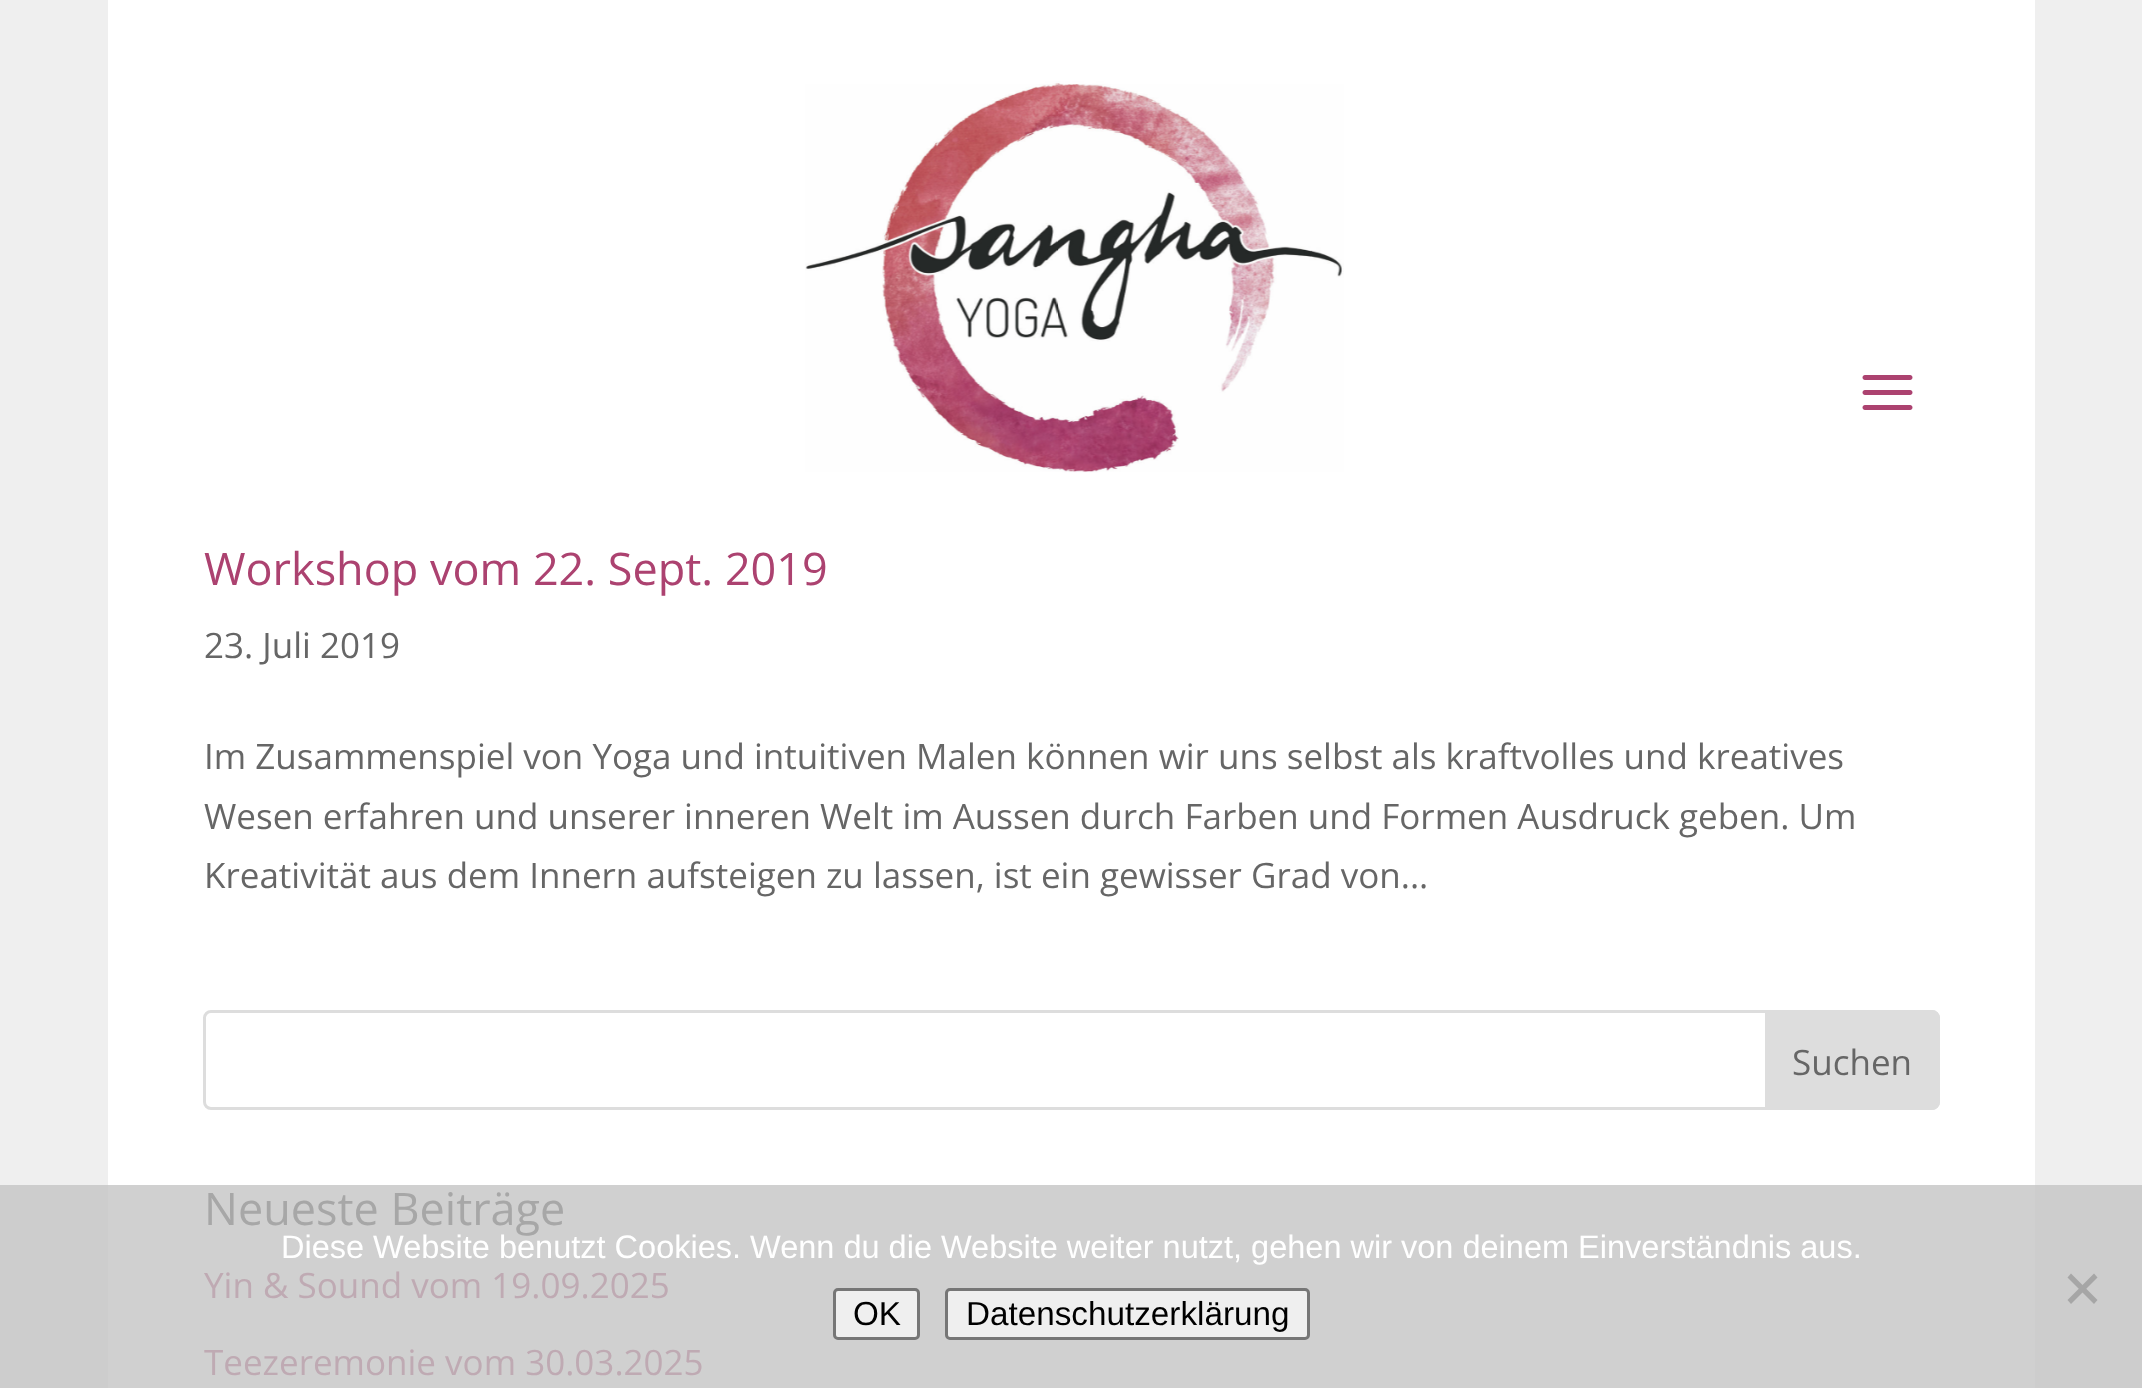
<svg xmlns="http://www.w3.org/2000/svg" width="2142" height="1388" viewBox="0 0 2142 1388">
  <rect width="100%" height="100%" fill="#efefef"/>
  <rect x="0" y="1185" width="2142" height="203" fill="#cdcdcd"/>
  <rect x="108" y="0" width="1927" height="1185" fill="#ffffff"/>
  <image x="805" y="81" width="539" height="392" href="img1.png"/>
  <image x="1862" y="375" width="51" height="35" href="img2.png"/>
  <rect x="108" y="1185" width="1927" height="203" fill="#d0d0d0"/>
  <text x="204" y="585" font-family="Open Sans" font-size="45" fill="#ac4270">Workshop vom 22. Sept. 2019</text>
  <text x="204" y="658" font-family="Open Sans" font-size="35" fill="#666666">23. Juli 2019</text>
  <text x="204" y="769" font-family="Open Sans" font-size="35" fill="#666666">Im Zusammenspiel von Yoga und intuitiven Malen können wir uns selbst als kraftvolles und kreatives</text>
  <text x="204" y="829" font-family="Open Sans" font-size="35" fill="#666666">Wesen erfahren und unserer inneren Welt im Aussen durch Farben und Formen Ausdruck geben. Um</text>
  <text x="204" y="888" font-family="Open Sans" font-size="35" fill="#666666">Kreativität aus dem Innern aufsteigen zu lassen, ist ein gewisser Grad von...</text>
  <rect x="204.5" y="1011.5" width="1734" height="97" rx="6.5" fill="none" stroke="#dddddd" stroke-width="3"/>
  <path d="M1766.5 1011.5H1932C1935.5 1011.5 1938.5 1014.5 1938.5 1018V1102C1938.5 1105.5 1935.5 1108.5 1932 1108.5H1766.5Z" fill="#dddddd" stroke="#dddddd" stroke-width="3"/>
  <text x="1792" y="1075" font-family="Open Sans" font-size="35" fill="#666666">Suchen</text>
  <text x="204" y="1225" font-family="Open Sans" font-size="45" fill="#a7a7a7">Neueste Beiträge</text>
  <text x="204" y="1298" font-family="Open Sans" font-size="35" fill="#bfaab3">Yin &amp; Sound vom 19.09.2025</text>
  <text x="204" y="1375" font-family="Open Sans" font-size="35" fill="#bfaab3">Teezeremonie vom 30.03.2025</text>
  <text x="281" y="1258" font-family="Liberation Sans" font-size="32.5" fill="#ffffff">Diese Website benutzt Cookies. Wenn du die Website weiter nutzt, gehen wir von deinem Einverständnis aus.</text>
  <path d="M2094 1273.5L2097.5 1277.5L2071 1304L2067.5 1300Z" fill="#a6a6a6"/>
  <path d="M2067.5 1277.5L2071 1273.5L2097.5 1300L2094 1304Z" fill="#a6a6a6"/>
  <rect x="834.5" y="1289.5" width="84" height="49" rx="3.5" fill="#efefef" stroke="#767676" stroke-width="3"/>
  <text x="853" y="1325" font-family="Liberation Sans" font-size="33.25" fill="#000000">OK</text>
  <rect x="946.5" y="1289.5" width="362" height="49" rx="3.5" fill="#efefef" stroke="#767676" stroke-width="3"/>
  <text x="966" y="1325" font-family="Liberation Sans" font-size="33.25" fill="#000000">Datenschutzerklärung</text>
</svg>
